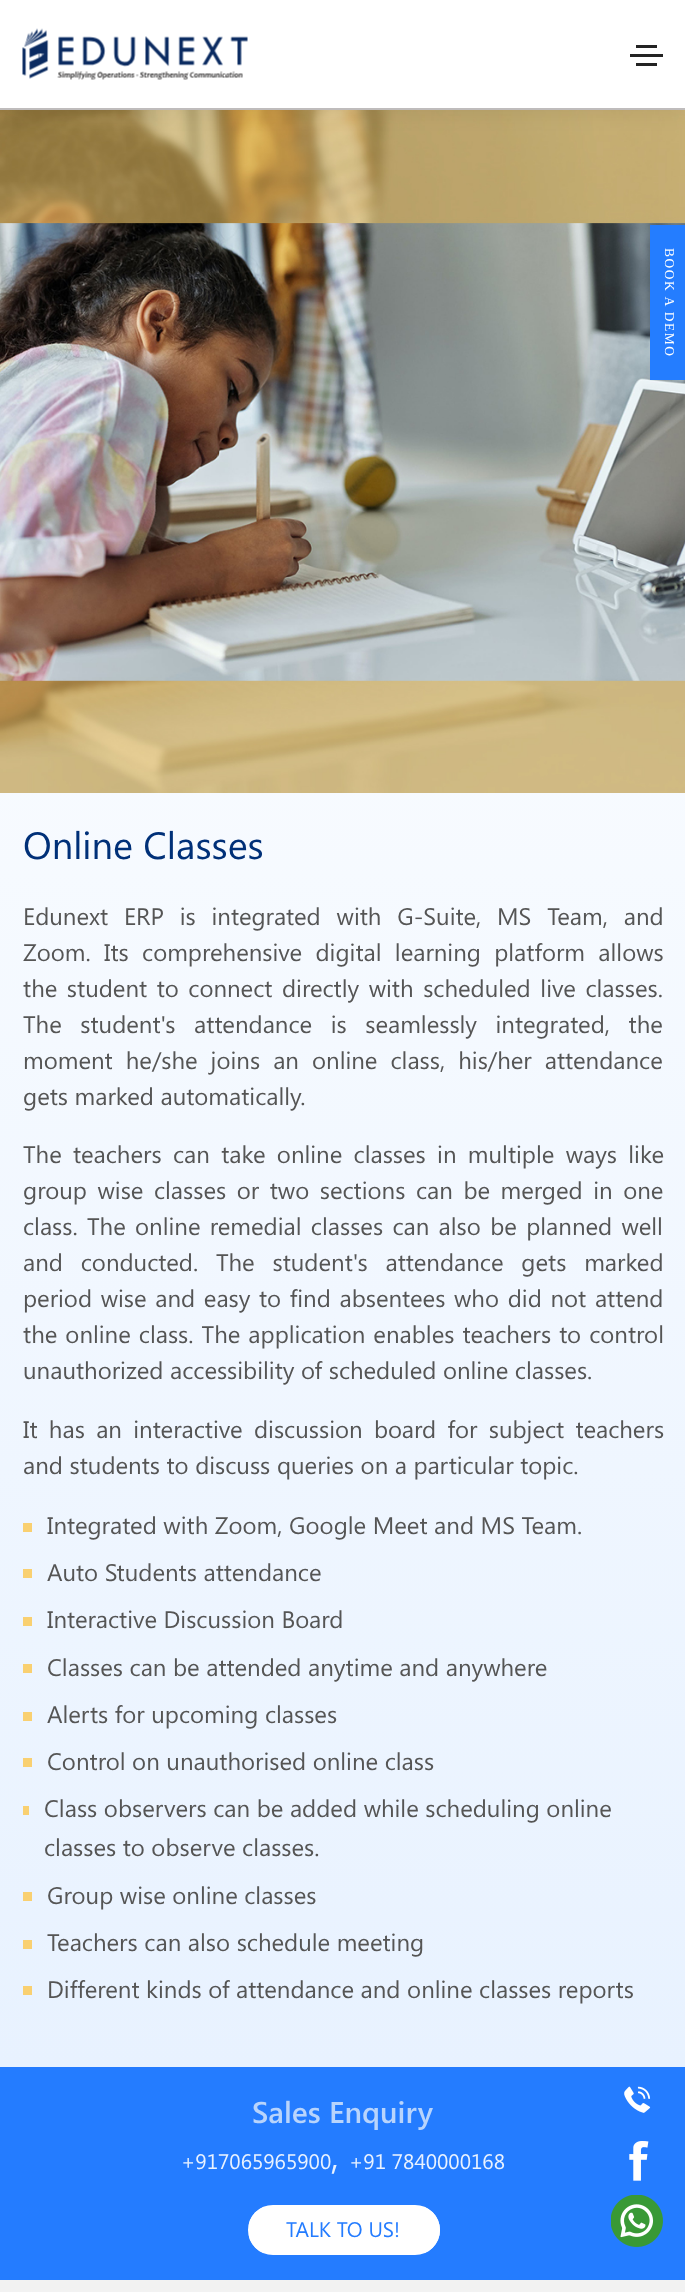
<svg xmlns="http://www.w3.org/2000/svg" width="685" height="2292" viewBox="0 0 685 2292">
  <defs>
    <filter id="blur1" x="-50%" y="-200%" width="200%" height="500%"><feGaussianBlur stdDeviation="9"/></filter>
    <linearGradient id="g1" gradientUnits="userSpaceOnUse" x1="343" y1="108" x2="343" y2="2067"><stop offset="0" stop-color="#ffffff"/><stop offset="1" stop-color="#e8f2ff"/></linearGradient>
    <clipPath id="clip1"><rect x="248" y="2205" width="192" height="50" rx="25"/></clipPath>
    <linearGradient id="g2" gradientUnits="userSpaceOnUse" x1="520" y1="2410" x2="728" y2="2050"><stop offset="0.5" stop-color="#ffffff"/><stop offset="0.5" stop-color="#247cff"/></linearGradient>
  </defs>
  <rect width="100%" height="100%" fill="#ffffff"/>
  <image x="0" y="110" width="685" height="683" href="img2.png"/>
  <rect x="0" y="6" width="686" height="110" fill="#000000" fill-opacity="0.05" filter="url(#blur1)"/>
  <rect x="0" y="0" width="685" height="108" fill="#ffffff"/>
  <rect x="0" y="108" width="685" height="2" fill="#bfbcbc"/>
  <image x="22" y="28" width="226" height="52" href="img1.png"/>
  <rect x="636" y="45" width="21" height="3" fill="#232323"/>
  <rect x="630" y="54" width="33" height="3" fill="#232323"/>
  <rect x="636" y="63" width="21" height="3" fill="#232323"/>
  <rect x="650" y="225" width="35" height="155" fill="#247dff"/>
  <text x="665" y="248" transform="rotate(90 665 248)" font-family="Liberation Serif" font-size="13.5" letter-spacing="1.5" fill="#ffffff">BOOK A DEMO</text>
  <rect x="0" y="793" width="685" height="1274" fill="url(#g1)"/>
  <text x="23" y="859" font-family="Segoe UI" font-size="38" fill="#003078">Online Classes</text>
  <text x="23" y="925" word-spacing="9.25" font-family="Segoe UI" font-size="24" fill="#555555">Edunext ERP is integrated with G-Suite, MS Team, and</text>
  <text x="23" y="961" word-spacing="6.75" font-family="Segoe UI" font-size="24" fill="#555555">Zoom. Its comprehensive digital learning platform allows</text>
  <text x="23" y="997" word-spacing="3" font-family="Segoe UI" font-size="24" fill="#555555">the student to connect directly with scheduled live classes.</text>
  <text x="23" y="1033" word-spacing="12" font-family="Segoe UI" font-size="24" fill="#555555">The student's attendance is seamlessly integrated, the</text>
  <text x="23" y="1069" word-spacing="6.5" font-family="Segoe UI" font-size="24" fill="#555555">moment he/she joins an online class, his/her attendance</text>
  <text x="23" y="1105" font-family="Segoe UI" font-size="24" fill="#555555">gets marked automatically.</text>
  <text x="23" y="1163" word-spacing="4.75" font-family="Segoe UI" font-size="24" fill="#555555">The teachers can take online classes in multiple ways like</text>
  <text x="23" y="1199" word-spacing="4" font-family="Segoe UI" font-size="24" fill="#555555">group wise classes or two sections can be merged in one</text>
  <text x="23" y="1235" word-spacing="2.75" font-family="Segoe UI" font-size="24" fill="#555555">class. The online remedial classes can also be planned well</text>
  <text x="23" y="1271" word-spacing="11.25" font-family="Segoe UI" font-size="24" fill="#555555">and conducted. The student's attendance gets marked</text>
  <text x="23" y="1307" word-spacing="2.1" font-family="Segoe UI" font-size="24" fill="#555555">period wise and easy to find absentees who did not attend</text>
  <text x="23" y="1343" word-spacing="1.5" font-family="Segoe UI" font-size="24" fill="#555555">the online class. The application enables teachers to control</text>
  <text x="23" y="1379" font-family="Segoe UI" font-size="24" fill="#555555">unauthorized accessibility of scheduled online classes.</text>
  <text x="23" y="1438" word-spacing="4.75" font-family="Segoe UI" font-size="24" fill="#555555">It has an interactive discussion board for subject teachers</text>
  <text x="23" y="1474" font-family="Segoe UI" font-size="24" fill="#555555">and students to discuss queries on a particular topic.</text>
  <rect x="23" y="1523" width="9" height="9" fill="#f9d071"/>
  <text x="47" y="1534" font-family="Segoe UI" font-size="24" fill="#555555">Integrated with Zoom, Google Meet and MS Team.</text>
  <rect x="23" y="1569" width="9" height="9" fill="#f9d071"/>
  <text x="47" y="1581" font-family="Segoe UI" font-size="24" fill="#555555">Auto Students attendance</text>
  <rect x="23" y="1617" width="9" height="9" fill="#f9d071"/>
  <text x="47" y="1628" font-family="Segoe UI" font-size="24" fill="#555555">Interactive Discussion Board</text>
  <rect x="23" y="1664" width="9" height="9" fill="#f9d071"/>
  <text x="47" y="1676" font-family="Segoe UI" font-size="24" fill="#555555">Classes can be attended anytime and anywhere</text>
  <rect x="23" y="1712" width="9" height="9" fill="#f9d071"/>
  <text x="47" y="1723" font-family="Segoe UI" font-size="24" fill="#555555">Alerts for upcoming classes</text>
  <rect x="23" y="1758" width="9" height="9" fill="#f9d071"/>
  <text x="47" y="1770" font-family="Segoe UI" font-size="24" fill="#555555">Control on unauthorised online class</text>
  <rect x="23" y="1806" width="6" height="9" fill="#f9d071"/>
  <text x="44" y="1817" font-family="Segoe UI" font-size="24" fill="#555555">Class observers can be added while scheduling online</text>
  <text x="44" y="1856" font-family="Segoe UI" font-size="24" fill="#555555">classes to observe classes.</text>
  <rect x="23" y="1892" width="9" height="9" fill="#f9d071"/>
  <text x="47" y="1904" font-family="Segoe UI" font-size="24" fill="#555555">Group wise online classes</text>
  <rect x="23" y="1940" width="9" height="9" fill="#f9d071"/>
  <text x="47" y="1951" font-family="Segoe UI" font-size="24" fill="#555555">Teachers can also schedule meeting</text>
  <rect x="23" y="1986" width="9" height="9" fill="#f9d071"/>
  <text x="47" y="1998" font-family="Segoe UI" font-size="24" fill="#555555">Different kinds of attendance and online classes reports</text>
  <rect x="0" y="2067" width="685" height="213" fill="#247cff"/>
  <text x="252" y="2123" font-family="Segoe UI" font-size="30" font-weight="600" fill="#b8d4fc">Sales Enquiry</text>
  <text x="181" y="2169" font-family="Segoe UI" font-size="21" fill="#e9f2ff">+917065965900</text>
  <text x="331" y="2169" font-family="Segoe UI" font-size="36" fill="#e9f2ff">,</text>
  <text x="349" y="2169" font-family="Segoe UI" font-size="21" fill="#e9f2ff">+91 7840000168</text>
  <g clip-path="url(#clip1)">
    <rect x="249" y="2207" width="191" height="46" fill="url(#g2)"/>
  </g>
  <rect x="249" y="2206" width="190" height="48" rx="24" fill="none" stroke="#ffffff" stroke-width="2"/>
  <text x="286" y="2237" font-family="Segoe UI" font-size="21" fill="#247cff">TALK TO US!</text>
  <image x="624" y="2086" width="27" height="27" href="img3.png"/>
  <image x="629" y="2141" width="20" height="40" href="img4.png"/>
  <image x="611" y="2195" width="52" height="52" href="img5.png"/>
  <rect x="0" y="2280" width="685" height="12" fill="#f2f2f2"/>
</svg>
